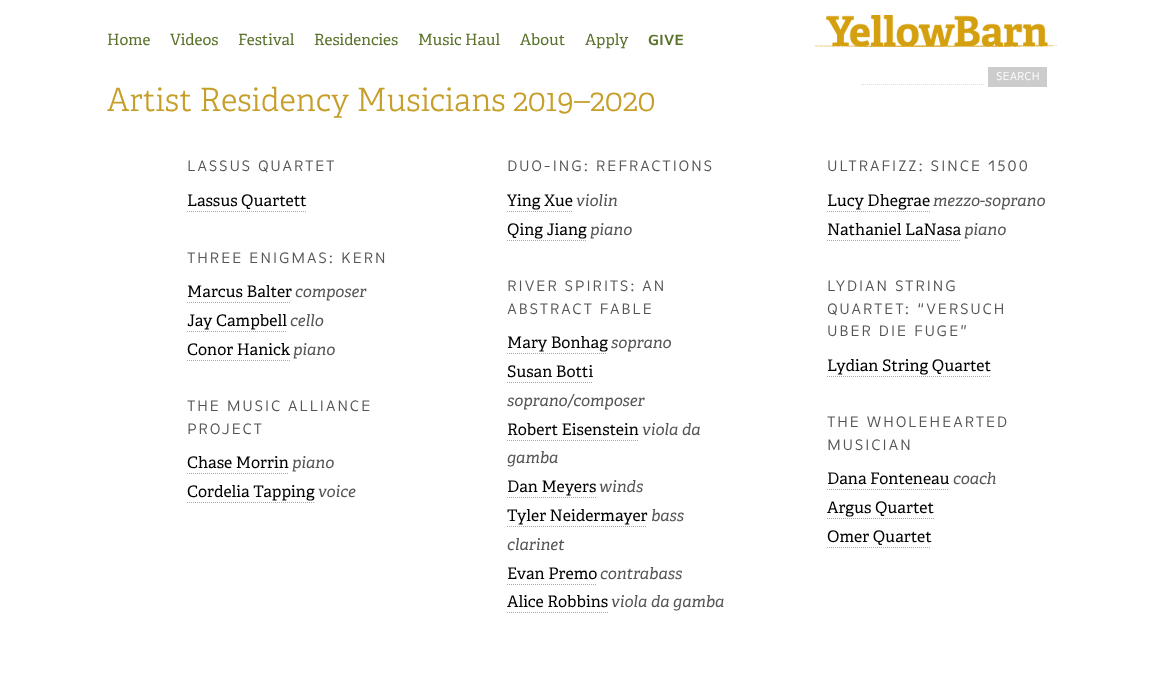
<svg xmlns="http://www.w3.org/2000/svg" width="1153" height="679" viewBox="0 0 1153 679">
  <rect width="100%" height="100%" fill="#ffffff"/>
  <image x="815" y="15" width="242" height="32" href="img1.png"/>
  <text x="107" y="45" font-family="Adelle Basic" font-size="15.5" fill="#59712a">Home</text>
  <text x="170" y="45" font-family="Adelle Basic" font-size="15.5" fill="#59712a">Videos</text>
  <text x="238" y="45" font-family="Adelle Basic" font-size="15.5" fill="#59712a">Festival</text>
  <text x="314" y="45" font-family="Adelle Basic" font-size="15.5" fill="#59712a">Residencies</text>
  <text x="418" y="45" font-family="Adelle Basic" font-size="15.5" fill="#59712a">Music Haul</text>
  <text x="520" y="45" font-family="Adelle Basic" font-size="15.5" fill="#59712a">About</text>
  <text x="585" y="45" font-family="Adelle Basic" font-size="15.5" fill="#59712a">Apply</text>
  <text x="648" y="45" font-family="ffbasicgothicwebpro" font-size="15.5" font-weight="600" fill="#59712a">GIVE</text>
  <rect x="988" y="67" width="59" height="20" fill="#cccccc"/>
  <text x="996" y="80" font-family="ffbasicgothicwebpro" font-size="12" fill="#ffffff">SEARCH</text>
  <path d="M861 84.5H985" fill="none" stroke="#dddddd" stroke-dasharray="1 1"/>
  <text x="107" y="111" font-family="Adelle" font-size="32" font-weight="300" fill="#c69e2a">Artist Residency Musicians 2019–2020</text>
  <text x="187" y="171" font-family="ffbasicgothicwebpro" font-size="16" letter-spacing="1.6" fill="#555555">LASSUS QUARTET</text>
  <text x="187" y="206" font-family="Adelle Basic" font-size="16" fill="#000000">Lassus Quartett</text>
  <path d="M187 211.5H306" fill="none" stroke="#a7a7a7" stroke-dasharray="1 1"/>
  <text x="187" y="263" font-family="ffbasicgothicwebpro" font-size="16" letter-spacing="1.6" fill="#555555">THREE ENIGMAS: KERN</text>
  <text x="187" y="297" font-family="Adelle Basic" font-size="16" fill="#000000">Marcus Balter</text>
  <path d="M187 302.5H291" fill="none" stroke="#a7a7a7" stroke-dasharray="1 1"/>
  <text x="295" y="297" font-family="Adelle Basic" font-size="16" font-style="italic" fill="#555555">composer</text>
  <text x="187" y="326" font-family="Adelle Basic" font-size="16" fill="#000000">Jay Campbell</text>
  <path d="M187 331.5H286" fill="none" stroke="#a7a7a7" stroke-dasharray="1 1"/>
  <text x="290" y="326" font-family="Adelle Basic" font-size="16" font-style="italic" fill="#555555">cello</text>
  <text x="187" y="355" font-family="Adelle Basic" font-size="16" fill="#000000">Conor Hanick</text>
  <path d="M187 360.5H290" fill="none" stroke="#a7a7a7" stroke-dasharray="1 1"/>
  <text x="293" y="355" font-family="Adelle Basic" font-size="16" font-style="italic" fill="#555555">piano</text>
  <text x="187" y="411" font-family="ffbasicgothicwebpro" font-size="16" letter-spacing="1.6" fill="#555555">THE MUSIC ALLIANCE</text>
  <text x="187" y="434" font-family="ffbasicgothicwebpro" font-size="16" letter-spacing="1.6" fill="#555555">PROJECT</text>
  <text x="187" y="468" font-family="Adelle Basic" font-size="16" fill="#000000">Chase Morrin</text>
  <path d="M187 473.5H288" fill="none" stroke="#a7a7a7" stroke-dasharray="1 1"/>
  <text x="292" y="468" font-family="Adelle Basic" font-size="16" font-style="italic" fill="#555555">piano</text>
  <text x="187" y="497" font-family="Adelle Basic" font-size="16" fill="#000000">Cordelia Tapping</text>
  <path d="M187 502.5H314" fill="none" stroke="#a7a7a7" stroke-dasharray="1 1"/>
  <text x="318" y="497" font-family="Adelle Basic" font-size="16" font-style="italic" fill="#555555">voice</text>
  <text x="507" y="171" font-family="ffbasicgothicwebpro" font-size="16" letter-spacing="1.6" fill="#555555">DUO-ING: REFRACTIONS</text>
  <text x="507" y="206" font-family="Adelle Basic" font-size="16" fill="#000000">Ying Xue</text>
  <path d="M507 211.5H573" fill="none" stroke="#a7a7a7" stroke-dasharray="1 1"/>
  <text x="576" y="206" font-family="Adelle Basic" font-size="16" font-style="italic" fill="#555555">violin</text>
  <text x="507" y="235" font-family="Adelle Basic" font-size="16" fill="#000000">Qing Jiang</text>
  <path d="M507 240.5H586" fill="none" stroke="#a7a7a7" stroke-dasharray="1 1"/>
  <text x="590" y="235" font-family="Adelle Basic" font-size="16" font-style="italic" fill="#555555">piano</text>
  <text x="507" y="291" font-family="ffbasicgothicwebpro" font-size="16" letter-spacing="1.6" fill="#555555">RIVER SPIRITS: AN</text>
  <text x="507" y="314" font-family="ffbasicgothicwebpro" font-size="16" letter-spacing="1.6" fill="#555555">ABSTRACT FABLE</text>
  <text x="507" y="348" font-family="Adelle Basic" font-size="16" fill="#000000">Mary Bonhag</text>
  <path d="M507 353.5H607" fill="none" stroke="#a7a7a7" stroke-dasharray="1 1"/>
  <text x="611" y="348" font-family="Adelle Basic" font-size="16" font-style="italic" fill="#555555">soprano</text>
  <text x="507" y="377" font-family="Adelle Basic" font-size="16" fill="#000000">Susan Botti</text>
  <path d="M507 382.5H593" fill="none" stroke="#a7a7a7" stroke-dasharray="1 1"/>
  <text x="507" y="406" font-family="Adelle Basic" font-size="16" font-style="italic" fill="#555555">soprano/composer</text>
  <text x="507" y="435" font-family="Adelle Basic" font-size="16" fill="#000000">Robert Eisenstein</text>
  <path d="M507 440.5H638" fill="none" stroke="#a7a7a7" stroke-dasharray="1 1"/>
  <text x="642" y="435" font-family="Adelle Basic" font-size="16" font-style="italic" fill="#555555">viola da</text>
  <text x="507" y="463" font-family="Adelle Basic" font-size="16" font-style="italic" fill="#555555">gamba</text>
  <text x="507" y="492" font-family="Adelle Basic" font-size="16" fill="#000000">Dan Meyers</text>
  <path d="M507 497.5H596" fill="none" stroke="#a7a7a7" stroke-dasharray="1 1"/>
  <text x="599" y="492" font-family="Adelle Basic" font-size="16" font-style="italic" fill="#555555">winds</text>
  <text x="507" y="521" font-family="Adelle Basic" font-size="16" fill="#000000">Tyler Neidermayer</text>
  <path d="M507 526.5H647" fill="none" stroke="#a7a7a7" stroke-dasharray="1 1"/>
  <text x="651" y="521" font-family="Adelle Basic" font-size="16" font-style="italic" fill="#555555">bass</text>
  <text x="507" y="550" font-family="Adelle Basic" font-size="16" font-style="italic" fill="#555555">clarinet</text>
  <text x="507" y="579" font-family="Adelle Basic" font-size="16" fill="#000000">Evan Premo</text>
  <path d="M507 584.5H597" fill="none" stroke="#a7a7a7" stroke-dasharray="1 1"/>
  <text x="600" y="579" font-family="Adelle Basic" font-size="16" font-style="italic" fill="#555555">contrabass</text>
  <text x="507" y="607" font-family="Adelle Basic" font-size="16" fill="#000000">Alice Robbins</text>
  <path d="M507 612.5H608" fill="none" stroke="#a7a7a7" stroke-dasharray="1 1"/>
  <text x="611" y="607" font-family="Adelle Basic" font-size="16" font-style="italic" fill="#555555">viola da gamba</text>
  <text x="827" y="171" font-family="ffbasicgothicwebpro" font-size="16" letter-spacing="1.6" fill="#555555">ULTRAFIZZ: SINCE 1500</text>
  <text x="827" y="206" font-family="Adelle Basic" font-size="16" fill="#000000">Lucy Dhegrae</text>
  <path d="M827 211.5H930" fill="none" stroke="#a7a7a7" stroke-dasharray="1 1"/>
  <text x="933" y="206" font-family="Adelle Basic" font-size="16" font-style="italic" fill="#555555">mezzo-soprano</text>
  <text x="827" y="235" font-family="Adelle Basic" font-size="16" fill="#000000">Nathaniel LaNasa</text>
  <path d="M827 240.5H961" fill="none" stroke="#a7a7a7" stroke-dasharray="1 1"/>
  <text x="964" y="235" font-family="Adelle Basic" font-size="16" font-style="italic" fill="#555555">piano</text>
  <text x="827" y="291" font-family="ffbasicgothicwebpro" font-size="16" letter-spacing="1.6" fill="#555555">LYDIAN STRING</text>
  <text x="827" y="314" font-family="ffbasicgothicwebpro" font-size="16" letter-spacing="1.6" fill="#555555">QUARTET: “VERSUCH</text>
  <text x="827" y="336" font-family="ffbasicgothicwebpro" font-size="16" letter-spacing="1.6" fill="#555555">UBER DIE FUGE”</text>
  <text x="827" y="371" font-family="Adelle Basic" font-size="16" fill="#000000">Lydian String Quartet</text>
  <path d="M827 376.5H991" fill="none" stroke="#a7a7a7" stroke-dasharray="1 1"/>
  <text x="827" y="427" font-family="ffbasicgothicwebpro" font-size="16" letter-spacing="1.6" fill="#555555">THE WHOLEHEARTED</text>
  <text x="827" y="450" font-family="ffbasicgothicwebpro" font-size="16" letter-spacing="1.6" fill="#555555">MUSICIAN</text>
  <text x="827" y="484" font-family="Adelle Basic" font-size="16" fill="#000000">Dana Fonteneau</text>
  <path d="M827 489.5H949" fill="none" stroke="#a7a7a7" stroke-dasharray="1 1"/>
  <text x="953" y="484" font-family="Adelle Basic" font-size="16" font-style="italic" fill="#555555">coach</text>
  <text x="827" y="513" font-family="Adelle Basic" font-size="16" fill="#000000">Argus Quartet</text>
  <path d="M827 518.5H934" fill="none" stroke="#a7a7a7" stroke-dasharray="1 1"/>
  <text x="827" y="542" font-family="Adelle Basic" font-size="16" fill="#000000">Omer Quartet</text>
  <path d="M827 547.5H931" fill="none" stroke="#a7a7a7" stroke-dasharray="1 1"/>
</svg>
